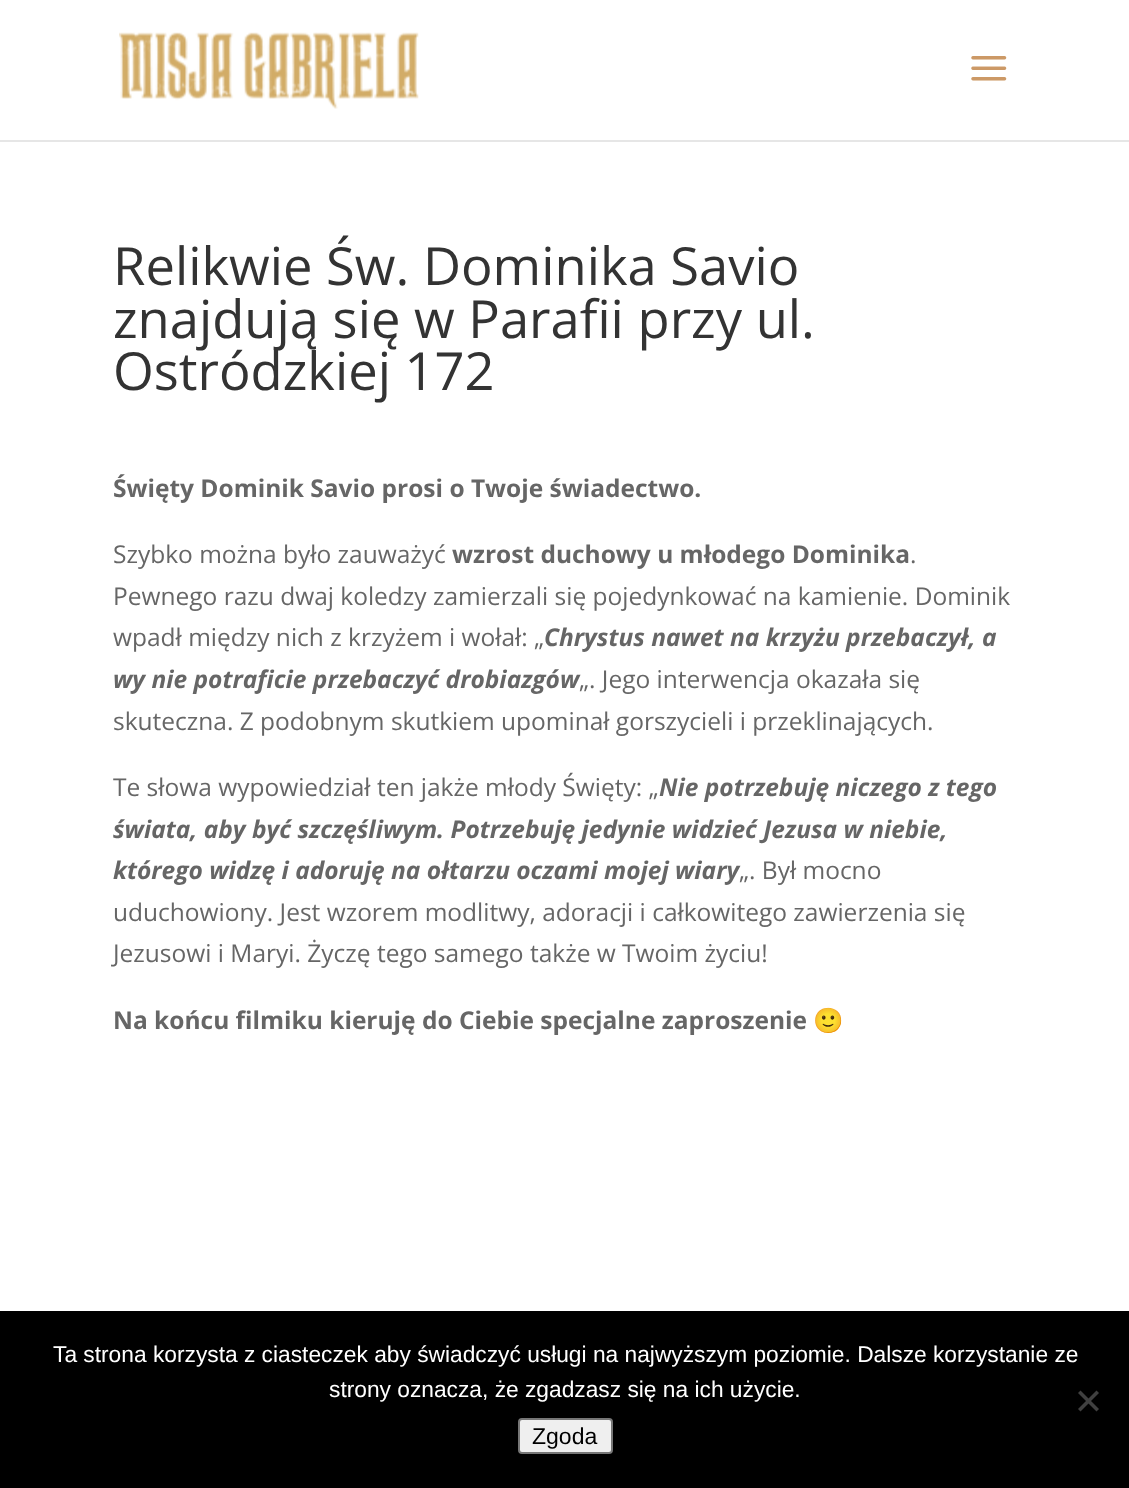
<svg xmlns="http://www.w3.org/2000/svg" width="1129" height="1488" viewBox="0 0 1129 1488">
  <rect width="100%" height="100%" fill="#ffffff"/>
  <path d="M0 140V142H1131V2H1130V140Z" fill="#e6e6e6"/>
  <image x="119" y="32" width="300" height="77" href="img1.png"/>
  <image x="971" y="56" width="36" height="25" href="img2.png"/>
  <text x="113" y="285" font-family="Open Sans" font-size="52.5" fill="#333333">Relikwie Św. Dominika Savio</text>
  <text x="113" y="338" font-family="Open Sans" font-size="52.5" fill="#333333">znajdują się w Parafii przy ul.</text>
  <text x="113" y="390" font-family="Open Sans" font-size="52.5" fill="#333333">Ostródzkiej 172</text>
  <text x="113" y="497" font-family="Open Sans" font-size="24.5" font-weight="bold" fill="#666666">Święty Dominik Savio prosi o Twoje świadectwo.</text>
  <text x="113" y="563" font-family="Open Sans" font-size="24.5" fill="#666666">Szybko można było zauważyć</text>
  <text x="452" y="563" font-family="Open Sans" font-size="24.5" font-weight="bold" fill="#666666">wzrost duchowy u młodego Dominika</text>
  <text x="910" y="563" font-family="Open Sans" font-size="24.5" fill="#666666">.</text>
  <text x="113" y="605" font-family="Open Sans" font-size="24.5" fill="#666666">Pewnego razu dwaj koledzy zamierzali się pojedynkować na kamienie. Dominik</text>
  <text x="113" y="646" font-family="Open Sans" font-size="24.5" fill="#666666">wpadł między nich z krzyżem i wołał: „</text>
  <text x="544" y="646" font-family="Open Sans" font-size="24.5" font-weight="bold" font-style="italic" fill="#666666">Chrystus nawet na krzyżu przebaczył, a</text>
  <text x="113" y="688" font-family="Open Sans" font-size="24.5" font-weight="bold" font-style="italic" fill="#666666">wy nie potraficie przebaczyć drobiazgów</text>
  <text x="579" y="688" font-family="Open Sans" font-size="24.5" fill="#666666">„. Jego interwencja okazała się</text>
  <text x="113" y="730" font-family="Open Sans" font-size="24.5" fill="#666666">skuteczna. Z podobnym skutkiem upominał gorszycieli i przeklinających.</text>
  <text x="113" y="796" font-family="Open Sans" font-size="24.5" fill="#666666">Te słowa wypowiedział ten jakże młody Święty: „</text>
  <text x="659" y="796" font-family="Open Sans" font-size="24.5" font-weight="bold" font-style="italic" fill="#666666">Nie potrzebuję niczego z tego</text>
  <text x="113" y="838" font-family="Open Sans" font-size="24.5" font-weight="bold" font-style="italic" fill="#666666">świata, aby być szczęśliwym. Potrzebuję jedynie widzieć Jezusa w niebie,</text>
  <text x="113" y="879" font-family="Open Sans" font-size="24.5" font-weight="bold" font-style="italic" fill="#666666">którego widzę i adoruję na ołtarzu oczami mojej wiary</text>
  <text x="739" y="879" font-family="Open Sans" font-size="24.5" fill="#666666">„. Był mocno</text>
  <text x="113" y="921" font-family="Open Sans" font-size="24.5" fill="#666666">uduchowiony. Jest wzorem modlitwy, adoracji i całkowitego zawierzenia się</text>
  <text x="113" y="962" font-family="Open Sans" font-size="24.5" fill="#666666">Jezusowi i Maryi. Życzę tego samego także w Twoim życiu!</text>
  <text x="113" y="1029" font-family="Open Sans" font-size="24.5" font-weight="bold" fill="#666666">Na końcu filmiku kieruję do Ciebie specjalne zaproszenie</text>
  <text x="813" y="1029" font-family="Noto Color Emoji" font-size="24.5" font-weight="bold" fill="#666666">🙂</text>
  <rect x="0" y="1311" width="1129" height="177" fill="#000000"/>
  <text x="53" y="1362" font-family="Liberation Sans" font-size="22.75" fill="#ffffff">Ta strona korzysta z ciasteczek aby świadczyć usługi na najwyższym poziomie. Dalsze korzystanie ze</text>
  <text x="329" y="1397" font-family="Liberation Sans" font-size="22.75" fill="#ffffff">strony oznacza, że zgadzasz się na ich użycie.</text>
  <path d="M1096.5 1390.5L1099 1393L1080.5 1411.5L1078 1409Z" fill="#404040"/>
  <path d="M1078 1393L1080.5 1390.5L1099 1409L1096.5 1411.5Z" fill="#404040"/>
  <rect x="519" y="1419" width="93" height="34" rx="3" fill="#efefef" stroke="#767676" stroke-width="2"/>
  <text x="532" y="1444" font-family="Liberation Sans" font-size="23" fill="#000000">Zgoda</text>
</svg>
